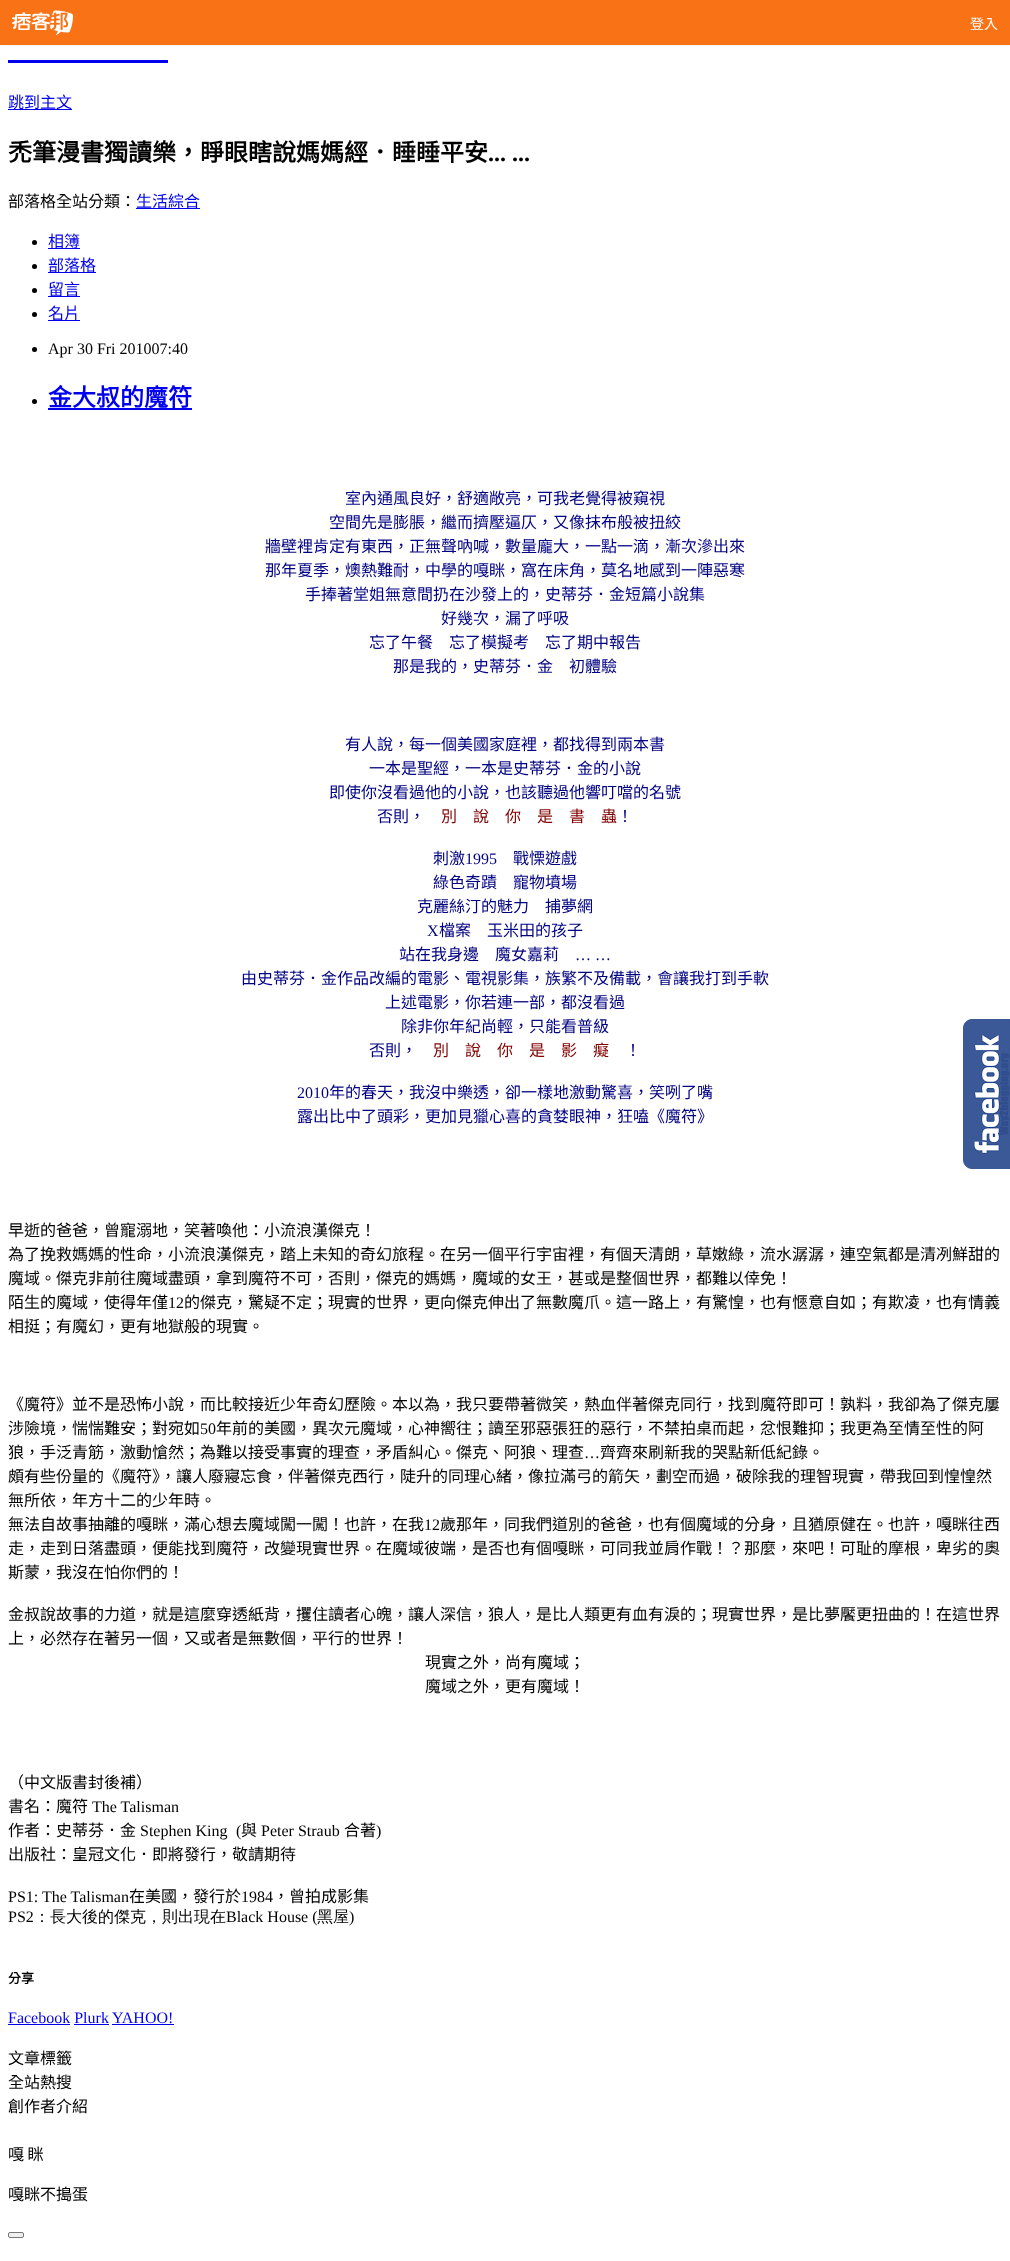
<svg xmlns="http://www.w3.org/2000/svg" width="1010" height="2261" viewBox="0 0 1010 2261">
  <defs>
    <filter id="blur1" x="-50%" y="-200%" width="200%" height="500%"><feGaussianBlur stdDeviation="1"/></filter>
  </defs>
  <rect width="100%" height="100%" fill="#ffffff"/>
  <rect x="0" y="1" width="1010" height="45" fill="#000000" fill-opacity="0.05" filter="url(#blur1)"/>
  <rect x="0" y="0" width="1010" height="45" fill="#f97316"/>
  <image x="12" y="10" width="61" height="25" href="img1.png"/>
  <text x="970" y="29" font-family="Noto Sans CJK TC" font-size="14" fill="#ffffff">登入</text>
  <rect x="8" y="60" width="160" height="3" fill="#0000ee"/>
  <rect x="8" y="109" width="64" height="1" fill="#0000ee"/>
  <text x="8" y="108" font-family="Noto Sans CJK TC" font-size="16" fill="#0000ee">跳到主文</text>
  <text x="8" y="161" font-family="Noto Sans CJK TC" font-size="24" font-weight="bold" fill="#000000">禿筆漫書獨讀樂，睜眼瞎說媽媽經．睡睡平安</text>
  <text x="488" y="161" font-family="Liberation Serif" font-size="24" font-weight="bold" fill="#000000">... ...</text>
  <text x="8" y="207" font-family="Noto Sans CJK TC" font-size="16" fill="#000000">部落格全站分類：</text>
  <rect x="136" y="208" width="64" height="1" fill="#0000ee"/>
  <text x="136" y="207" font-family="Noto Sans CJK TC" font-size="16" fill="#0000ee">生活綜合</text>
  <circle cx="34.5" cy="242.5" r="2.5" fill="#000000"/>
  <rect x="48" y="248" width="32" height="1" fill="#0000ee"/>
  <text x="48" y="247" font-family="Noto Sans CJK TC" font-size="16" fill="#0000ee">相簿</text>
  <circle cx="34.5" cy="266.5" r="2.5" fill="#000000"/>
  <rect x="48" y="272" width="48" height="1" fill="#0000ee"/>
  <text x="48" y="271" font-family="Noto Sans CJK TC" font-size="16" fill="#0000ee">部落格</text>
  <circle cx="34.5" cy="290.5" r="2.5" fill="#000000"/>
  <rect x="48" y="296" width="32" height="1" fill="#0000ee"/>
  <text x="48" y="295" font-family="Noto Sans CJK TC" font-size="16" fill="#0000ee">留言</text>
  <circle cx="34.5" cy="314.5" r="2.5" fill="#000000"/>
  <rect x="48" y="320" width="32" height="1" fill="#0000ee"/>
  <text x="48" y="319" font-family="Noto Sans CJK TC" font-size="16" fill="#0000ee">名片</text>
  <circle cx="34.5" cy="349.5" r="2.5" fill="#000000"/>
  <text x="48" y="354" font-family="Liberation Serif" font-size="16" fill="#000000">Apr 30 Fri 201007:40</text>
  <circle cx="34.5" cy="401.5" r="2.5" fill="#000000"/>
  <text x="48" y="406" font-family="Noto Sans CJK TC" font-size="24" font-weight="bold" fill="#0000ee">金大叔的魔符</text>
  <rect x="48" y="408" width="144" height="2" fill="#0000ee"/>
  <text x="345" y="504" font-family="Noto Sans CJK TC" font-size="16" fill="#000080">室內通風良好，舒適敞亮，可我老覺得被窺視</text>
  <text x="329" y="528" font-family="Noto Sans CJK TC" font-size="16" fill="#000080">空間先是膨脹，繼而擠壓逼仄，又像抹布般被扭絞</text>
  <text x="265" y="552" font-family="Noto Sans CJK TC" font-size="16" fill="#000080">牆壁裡肯定有東西，正無聲吶喊，數量龐大，一點一滴，漸次滲出來</text>
  <text x="265" y="576" font-family="Noto Sans CJK TC" font-size="16" fill="#000080">那年夏季，燠熱難耐，中學的嘎眯，窩在床角，莫名地感到一陣惡寒</text>
  <text x="305" y="600" font-family="Noto Sans CJK TC" font-size="16" fill="#000080">手捧著堂姐無意間扔在沙發上的，史蒂芬．金短篇小說集</text>
  <text x="441" y="624" font-family="Noto Sans CJK TC" font-size="16" fill="#000080">好幾次，漏了呼吸</text>
  <text x="369" y="648" font-family="Noto Sans CJK TC" font-size="16" fill="#000080">忘了午餐　忘了模擬考　忘了期中報告</text>
  <text x="393" y="672" font-family="Noto Sans CJK TC" font-size="16" fill="#000080">那是我的，史蒂芬．金　初體驗</text>
  <text x="345" y="750" font-family="Noto Sans CJK TC" font-size="16" fill="#000080">有人說，每一個美國家庭裡，都找得到兩本書</text>
  <text x="369" y="774" font-family="Noto Sans CJK TC" font-size="16" fill="#000080">一本是聖經，一本是史蒂芬．金的小說</text>
  <text x="329" y="798" font-family="Noto Sans CJK TC" font-size="16" fill="#000080">即使你沒看過他的小說，也該聽過他響叮噹的名號</text>
  <text x="377" y="822" font-family="Noto Sans CJK TC" font-size="16" fill="#000080">否則，</text>
  <text x="441" y="822" font-family="Noto Sans CJK TC" font-size="16" fill="#800000">別　說　你　是　書　蟲</text>
  <text x="617" y="822" font-family="Noto Sans CJK TC" font-size="16" fill="#000080">！</text>
  <text x="433" y="864" font-family="Noto Sans CJK TC" font-size="16" fill="#000080">刺激</text>
  <text x="465" y="864" font-family="Liberation Serif" font-size="16" fill="#000080">1995</text>
  <text x="513" y="864" font-family="Noto Sans CJK TC" font-size="16" fill="#000080">戰慄遊戲</text>
  <text x="433" y="888" font-family="Noto Sans CJK TC" font-size="16" fill="#000080">綠色奇蹟　寵物墳場</text>
  <text x="417" y="912" font-family="Noto Sans CJK TC" font-size="16" fill="#000080">克麗絲汀的魅力　捕夢網</text>
  <text x="427" y="936" font-family="Liberation Serif" font-size="16" fill="#000080">X</text>
  <text x="439" y="936" font-family="Noto Sans CJK TC" font-size="16" fill="#000080">檔案　玉米田的孩子</text>
  <text x="399" y="960" font-family="Noto Sans CJK TC" font-size="16" fill="#000080">站在我身邊　魔女嘉莉</text>
  <text x="575" y="960" font-family="Liberation Serif" font-size="16" fill="#000080">… …</text>
  <text x="241" y="984" font-family="Noto Sans CJK TC" font-size="16" fill="#000080">由史蒂芬．金作品改編的電影、電視影集，族繁不及備載，會讓我打到手軟</text>
  <text x="385" y="1008" font-family="Noto Sans CJK TC" font-size="16" fill="#000080">上述電影，你若連一部，都沒看過</text>
  <text x="401" y="1032" font-family="Noto Sans CJK TC" font-size="16" fill="#000080">除非你年紀尚輕，只能看普級</text>
  <text x="369" y="1056" font-family="Noto Sans CJK TC" font-size="16" fill="#000080">否則，</text>
  <text x="433" y="1056" font-family="Noto Sans CJK TC" font-size="16" fill="#800000">別　說　你　是　影　癡</text>
  <text x="625" y="1056" font-family="Noto Sans CJK TC" font-size="16" fill="#000080">！</text>
  <text x="297" y="1098" font-family="Liberation Serif" font-size="16" fill="#000080">2010</text>
  <text x="329" y="1098" font-family="Noto Sans CJK TC" font-size="16" fill="#000080">年的春天，我沒中樂透，卻一樣地激動驚喜，笑咧了嘴</text>
  <text x="297" y="1122" font-family="Noto Sans CJK TC" font-size="16" fill="#000080">露出比中了頭彩，更加見獵心喜的貪婪眼神，狂嗑《魔符》</text>
  <text x="8" y="1236" font-family="Noto Sans CJK TC" font-size="16" fill="#000000">早逝的爸爸，曾寵溺地，笑著喚他：小流浪漢傑克！</text>
  <text x="8" y="1260" font-family="Noto Sans CJK TC" font-size="16" fill="#000000">為了挽救媽媽的性命，小流浪漢傑克，踏上未知的奇幻旅程。在另一個平行宇宙裡，有個天清朗，草嫩綠，流水潺潺，連空氣都是清冽鮮甜的</text>
  <text x="8" y="1284" font-family="Noto Sans CJK TC" font-size="16" fill="#000000">魔域。傑克非前往魔域盡頭，拿到魔符不可，否則，傑克的媽媽，魔域的女王，甚或是整個世界，都難以倖免！</text>
  <text x="8" y="1308" font-family="Noto Sans CJK TC" font-size="16" fill="#000000">陌生的魔域，使得年僅</text>
  <text x="168" y="1308" font-family="Liberation Serif" font-size="16" fill="#000000">12</text>
  <text x="184" y="1308" font-family="Noto Sans CJK TC" font-size="16" fill="#000000">的傑克，驚疑不定；現實的世界，更向傑克伸出了無數魔爪。這一路上，有驚惶，也有愜意自如；有欺凌，也有情義</text>
  <text x="8" y="1332" font-family="Noto Sans CJK TC" font-size="16" fill="#000000">相挺；有魔幻，更有地獄般的現實。</text>
  <text x="8" y="1410" font-family="Noto Sans CJK TC" font-size="16" fill="#000000">《魔符》並不是恐怖小說，而比較接近少年奇幻歷險。本以為，我只要帶著微笑，熱血伴著傑克同行，找到魔符即可！孰料，我卻為了傑克屢</text>
  <text x="8" y="1434" font-family="Noto Sans CJK TC" font-size="16" fill="#000000">涉險境，惴惴難安；對宛如</text>
  <text x="200" y="1434" font-family="Liberation Serif" font-size="16" fill="#000000">50</text>
  <text x="216" y="1434" font-family="Noto Sans CJK TC" font-size="16" fill="#000000">年前的美國，異次元魔域，心神嚮往；讀至邪惡張狂的惡行，不禁拍桌而起，忿恨難抑；我更為至情至性的阿</text>
  <text x="8" y="1458" font-family="Noto Sans CJK TC" font-size="16" fill="#000000">狼，手泛青筋，激動愴然；為難以接受事實的理查，矛盾糾心。傑克、阿狼、理查</text>
  <text x="584" y="1458" font-family="Liberation Serif" font-size="16" fill="#000000">…</text>
  <text x="600" y="1458" font-family="Noto Sans CJK TC" font-size="16" fill="#000000">齊齊來刷新我的哭點新低紀錄。</text>
  <text x="8" y="1482" font-family="Noto Sans CJK TC" font-size="16" fill="#000000">頗有些份量的《魔符》，讓人廢寢忘食，伴著傑克西行，陡升的同理心緒，像拉滿弓的箭矢，劃空而過，破除我的理智現實，帶我回到惶惶然</text>
  <text x="8" y="1506" font-family="Noto Sans CJK TC" font-size="16" fill="#000000">無所依，年方十二的少年時。</text>
  <text x="8" y="1530" font-family="Noto Sans CJK TC" font-size="16" fill="#000000">無法自故事抽離的嘎眯，滿心想去魔域闖一闖！也許，在我</text>
  <text x="424" y="1530" font-family="Liberation Serif" font-size="16" fill="#000000">12</text>
  <text x="440" y="1530" font-family="Noto Sans CJK TC" font-size="16" fill="#000000">歲那年，同我們道別的爸爸，也有個魔域的分身，且猶原健在。也許，嘎眯往西</text>
  <text x="8" y="1554" font-family="Noto Sans CJK TC" font-size="16" fill="#000000">走，走到日落盡頭，便能找到魔符，改變現實世界。在魔域彼端，是否也有個嘎眯，可同我並肩作戰！？那麼，來吧！可耻的摩根，卑劣的奧</text>
  <text x="8" y="1578" font-family="Noto Sans CJK TC" font-size="16" fill="#000000">斯蒙，我沒在怕你們的！</text>
  <text x="8" y="1620" font-family="Noto Sans CJK TC" font-size="16" fill="#000000">金叔說故事的力道，就是這麼穿透紙背，攫住讀者心魄，讓人深信，狼人，是比人類更有血有淚的；現實世界，是比夢饜更扭曲的！在這世界</text>
  <text x="8" y="1644" font-family="Noto Sans CJK TC" font-size="16" fill="#000000">上，必然存在著另一個，又或者是無數個，平行的世界！</text>
  <text x="425" y="1668" font-family="Noto Sans CJK TC" font-size="16" fill="#000000">現實之外，尚有魔域；</text>
  <text x="425" y="1692" font-family="Noto Sans CJK TC" font-size="16" fill="#000000">魔域之外，更有魔域！</text>
  <text x="8" y="1788" font-family="Noto Sans CJK TC" font-size="16" fill="#000000">（中文版書封後補）</text>
  <text x="8" y="1812" font-family="Noto Sans CJK TC" font-size="16" fill="#000000">書名：魔符</text>
  <text x="92" y="1812" font-family="Liberation Serif" font-size="16" fill="#000000">The Talisman</text>
  <text x="8" y="1836" font-family="Noto Sans CJK TC" font-size="16" fill="#000000">作者：史蒂芬．金</text>
  <text x="140" y="1836" font-family="Liberation Serif" font-size="16" fill="#000000">Stephen King</text>
  <text x="236" y="1836" font-family="Liberation Serif" font-size="16" fill="#000000">(</text>
  <text x="241" y="1836" font-family="Noto Sans CJK TC" font-size="16" fill="#000000">與</text>
  <text x="261" y="1836" font-family="Liberation Serif" font-size="16" fill="#000000">Peter Straub</text>
  <text x="344" y="1836" font-family="Noto Sans CJK TC" font-size="16" fill="#000000">合著</text>
  <text x="376" y="1836" font-family="Liberation Serif" font-size="16" fill="#000000">)</text>
  <text x="8" y="1860" font-family="Noto Sans CJK TC" font-size="16" fill="#000000">出版社：皇冠文化．即將發行，敬請期待</text>
  <text x="8" y="1902" font-family="Liberation Serif" font-size="16" fill="#000000">PS1: The Talisman</text>
  <text x="129" y="1902" font-family="Noto Sans CJK TC" font-size="16" fill="#000000">在美國，發行於</text>
  <text x="241" y="1902" font-family="Liberation Serif" font-size="16" fill="#000000">1984</text>
  <text x="273" y="1902" font-family="Noto Sans CJK TC" font-size="16" fill="#000000">，曾拍成影集</text>
  <text x="8" y="1922" font-family="Liberation Serif" font-size="16" fill="#000000">PS2</text>
  <text x="34" y="1922" font-family="WenQuanYi Zen Hei" font-size="16" font-weight="500" fill="#000000">：長大後的傑克，則出現在</text>
  <text x="226" y="1922" font-family="Liberation Serif" font-size="16" fill="#000000">Black House (</text>
  <text x="317" y="1922" font-family="WenQuanYi Zen Hei" font-size="16" font-weight="500" fill="#000000">黑屋</text>
  <text x="349" y="1922" font-family="Liberation Serif" font-size="16" fill="#000000">)</text>
  <text x="8" y="1983" font-family="Noto Sans CJK TC" font-size="13" font-weight="bold" fill="#000000">分享</text>
  <text x="8" y="2023" font-family="Liberation Serif" font-size="16" fill="#0000ee">Facebook Plurk</text>
  <rect x="8" y="2024" width="62" height="1" fill="#0000ee"/>
  <rect x="74" y="2024" width="35" height="1" fill="#0000ee"/>
  <text x="112" y="2023" font-family="Liberation Serif" font-size="16" fill="#0000ee">YAHOO!</text>
  <rect x="112" y="2024" width="62" height="1" fill="#0000ee"/>
  <text x="8" y="2064" font-family="Noto Sans CJK TC" font-size="16" fill="#000000">文章標籤</text>
  <text x="8" y="2088" font-family="Noto Sans CJK TC" font-size="16" fill="#000000">全站熱搜</text>
  <text x="8" y="2112" font-family="Noto Sans CJK TC" font-size="16" fill="#000000">創作者介紹</text>
  <text x="8" y="2160" font-family="Noto Sans CJK TC" font-size="16" fill="#000000">嘎 眯</text>
  <text x="8" y="2200" font-family="Noto Sans CJK TC" font-size="16" fill="#000000">嘎眯不搗蛋</text>
  <rect x="8.5" y="2232.5" width="15" height="5" rx="1.5" fill="#efefef" stroke="#767676"/>
  <image x="963" y="1019" width="47" height="150" href="img2.png"/>
</svg>
